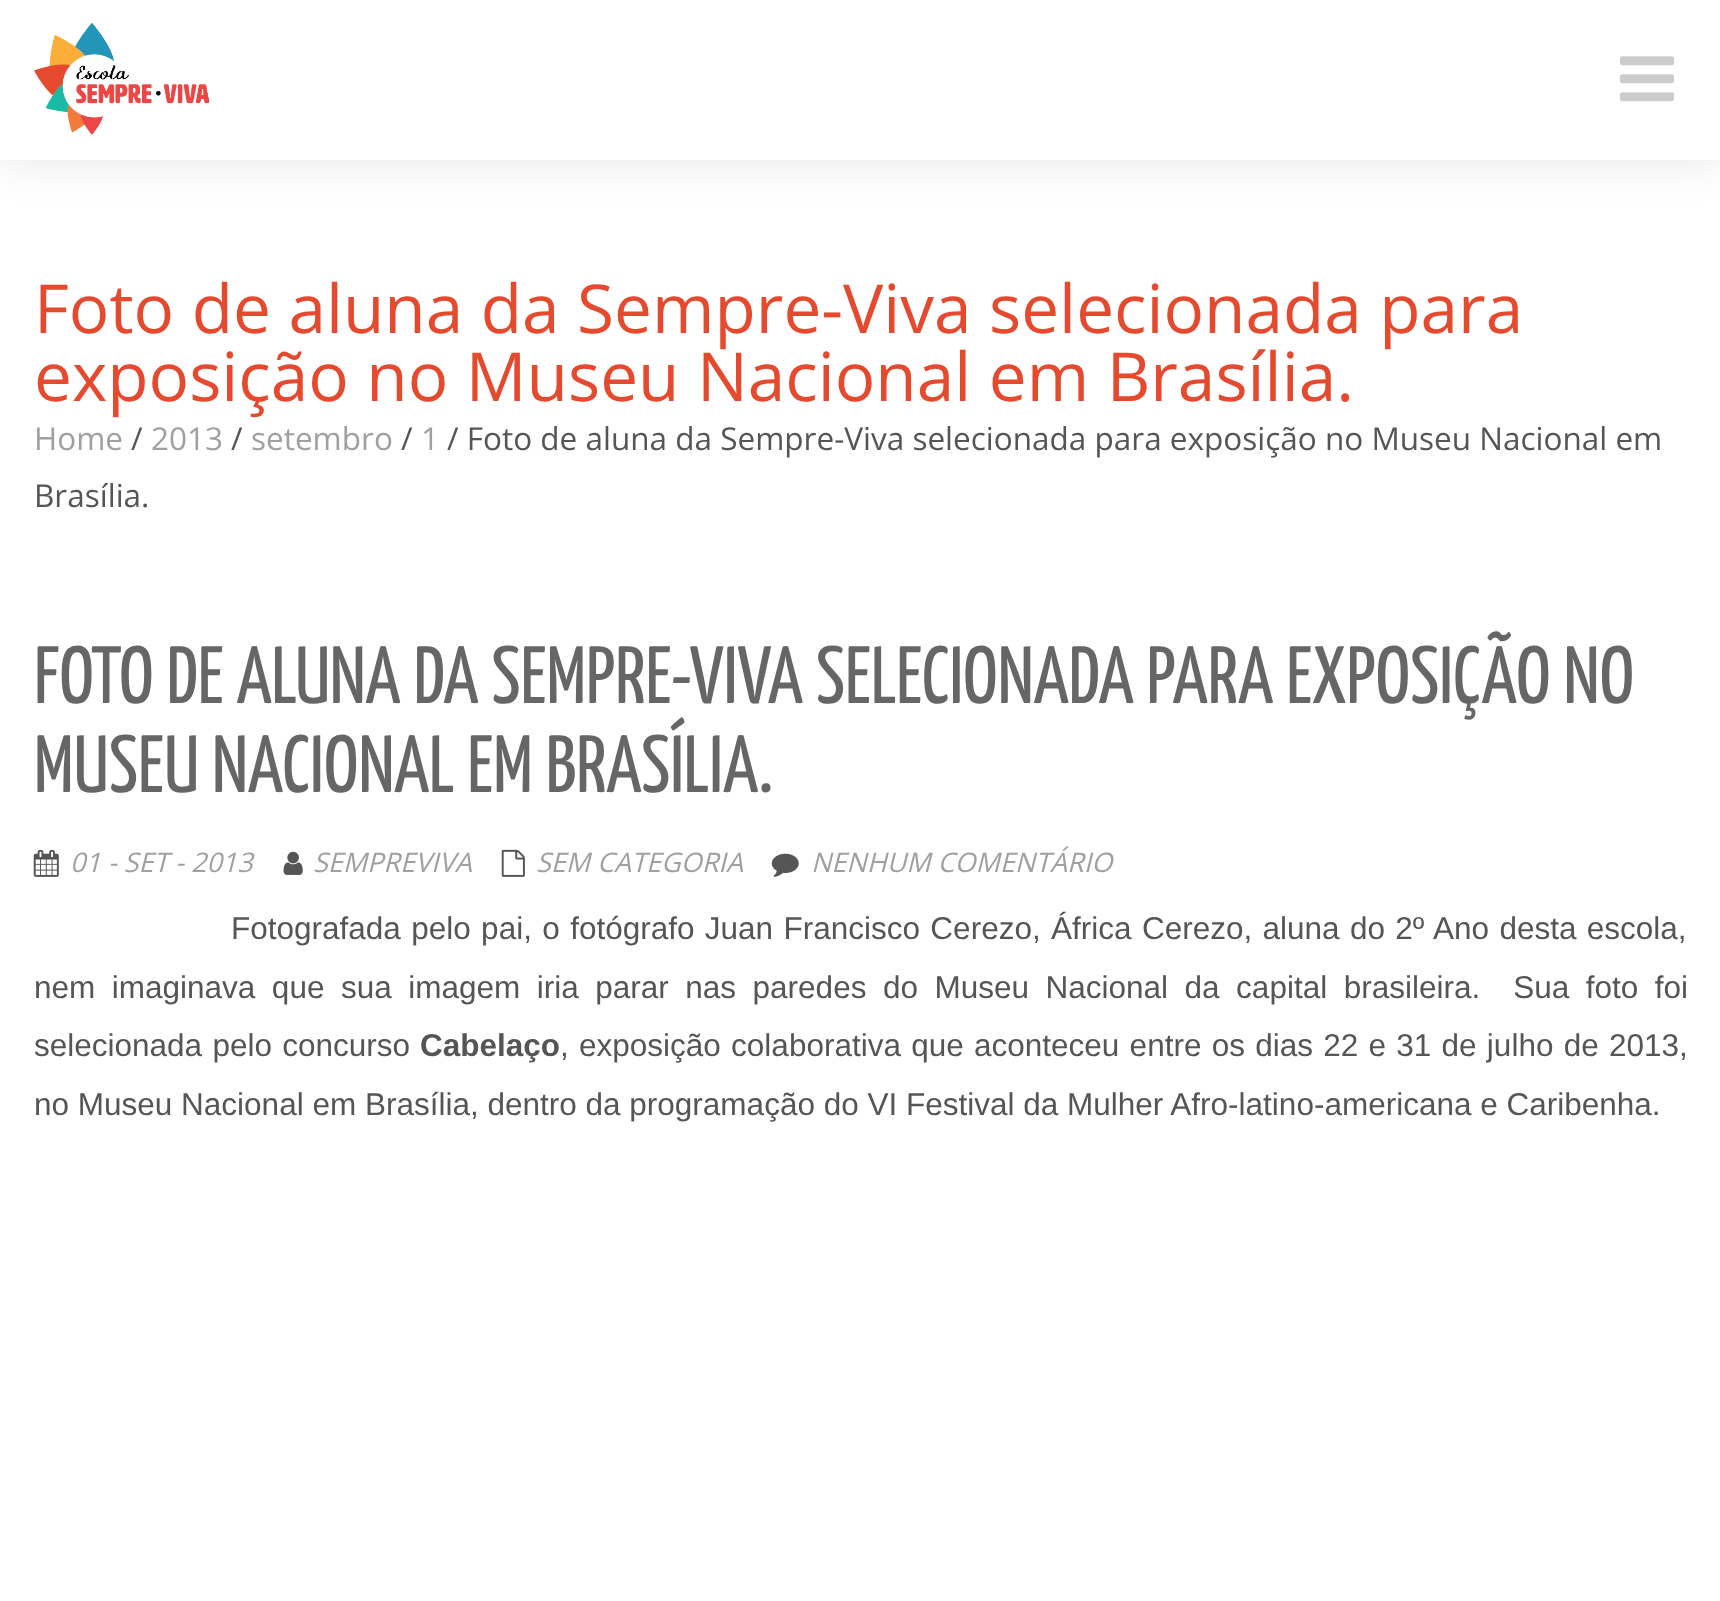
<svg xmlns="http://www.w3.org/2000/svg" width="1720" height="1601" viewBox="0 0 1720 1601">
  <defs>
    <filter id="blur1" x="-50%" y="-200%" width="200%" height="500%"><feGaussianBlur stdDeviation="22.5"/></filter>
  </defs>
  <rect width="100%" height="100%" fill="#ffffff"/>
  <rect x="0" y="0" width="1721" height="160" fill="#000000" fill-opacity="0.1" filter="url(#blur1)"/>
  <rect x="0" y="0" width="1720" height="160" fill="#ffffff"/>
  <image x="33" y="23" width="177" height="112" href="img1.png"/>
  <image x="1620" y="56" width="54" height="46" href="img2.png"/>
  <text x="34" y="333" font-family="Open Sans" font-size="67.5" fill="#e54a2e">Foto de aluna da Sempre-Viva selecionada para</text>
  <text x="34" y="401" font-family="Open Sans" font-size="67.5" fill="#e54a2e">exposição no Museu Nacional em Brasília.</text>
  <text x="34" y="450" font-family="Open Sans" font-size="31.5" fill="#a0a0a0">Home</text>
  <text x="131" y="450" font-family="Open Sans" font-size="31.5" fill="#555555">/</text>
  <text x="151" y="450" font-family="Open Sans" font-size="31.5" fill="#a0a0a0">2013</text>
  <text x="231" y="450" font-family="Open Sans" font-size="31.5" fill="#555555">/</text>
  <text x="251" y="450" font-family="Open Sans" font-size="31.5" fill="#a0a0a0">setembro</text>
  <text x="401" y="450" font-family="Open Sans" font-size="31.5" fill="#555555">/</text>
  <text x="421" y="450" font-family="Open Sans" font-size="31.5" fill="#a0a0a0">1</text>
  <text x="447" y="450" font-family="Open Sans" font-size="31.5" fill="#555555">/ Foto de aluna da Sempre-Viva selecionada para exposição no Museu Nacional em</text>
  <text x="34" y="507" font-family="Open Sans" font-size="31.5" fill="#555555">Brasília.</text>
  <text x="34" y="703" font-family="Yanone Kaffeesatz" font-size="81" font-weight="200" fill="#666666">FOTO DE ALUNA DA SEMPRE-VIVA SELECIONADA PARA EXPOSIÇÃO NO</text>
  <text x="34" y="792" font-family="Yanone Kaffeesatz" font-size="81" font-weight="200" fill="#666666">MUSEU NACIONAL EM BRASÍLIA.</text>
  <image x="33" y="849" width="26" height="28" href="img3.png"/>
  <text x="70" y="872" font-family="Open Sans" font-size="27" font-style="italic" fill="#a0a0a0">01 - SET - 2013</text>
  <image x="283" y="851" width="20" height="24" href="img4.png"/>
  <text x="313" y="872" font-family="Open Sans" font-size="27" font-style="italic" fill="#a0a0a0">SEMPREVIVA</text>
  <image x="501" y="849" width="24" height="28" href="img5.png"/>
  <text x="536" y="872" font-family="Open Sans" font-size="27" font-style="italic" fill="#a0a0a0">SEM CATEGORIA</text>
  <image x="771" y="853" width="28" height="24" href="img6.png"/>
  <text x="811" y="872" font-family="Open Sans" font-size="27" font-style="italic" fill="#a0a0a0">NENHUM COMENTÁRIO</text>
  <text x="231" y="939" word-spacing="1.6" font-family="Liberation Sans" font-size="31.5" fill="#555555">Fotografada pelo pai, o fotógrafo Juan Francisco Cerezo, África Cerezo, aluna do 2º Ano desta escola,</text>
  <text x="34" y="998" word-spacing="7.75" font-family="Liberation Sans" font-size="31.5" fill="#555555" xml:space="preserve">nem imaginava que sua imagem iria parar nas paredes do Museu Nacional da capital brasileira.  Sua foto foi</text>
  <text x="34" y="1056" word-spacing="1.5" font-family="Liberation Sans" font-size="31.5" fill="#555555">selecionada pelo concurso</text>
  <text x="420" y="1056" font-family="Liberation Sans" font-size="31.5" font-weight="bold" fill="#555555">Cabelaço</text>
  <text x="560" y="1056" word-spacing="1.5" font-family="Liberation Sans" font-size="31.5" fill="#555555">, exposição colaborativa que aconteceu entre os dias 22 e 31 de julho de 2013,</text>
  <text x="34" y="1115" font-family="Liberation Sans" font-size="31.5" fill="#555555">no Museu Nacional em Brasília, dentro da programação do VI Festival da Mulher Afro-latino-americana e Caribenha.</text>
</svg>
